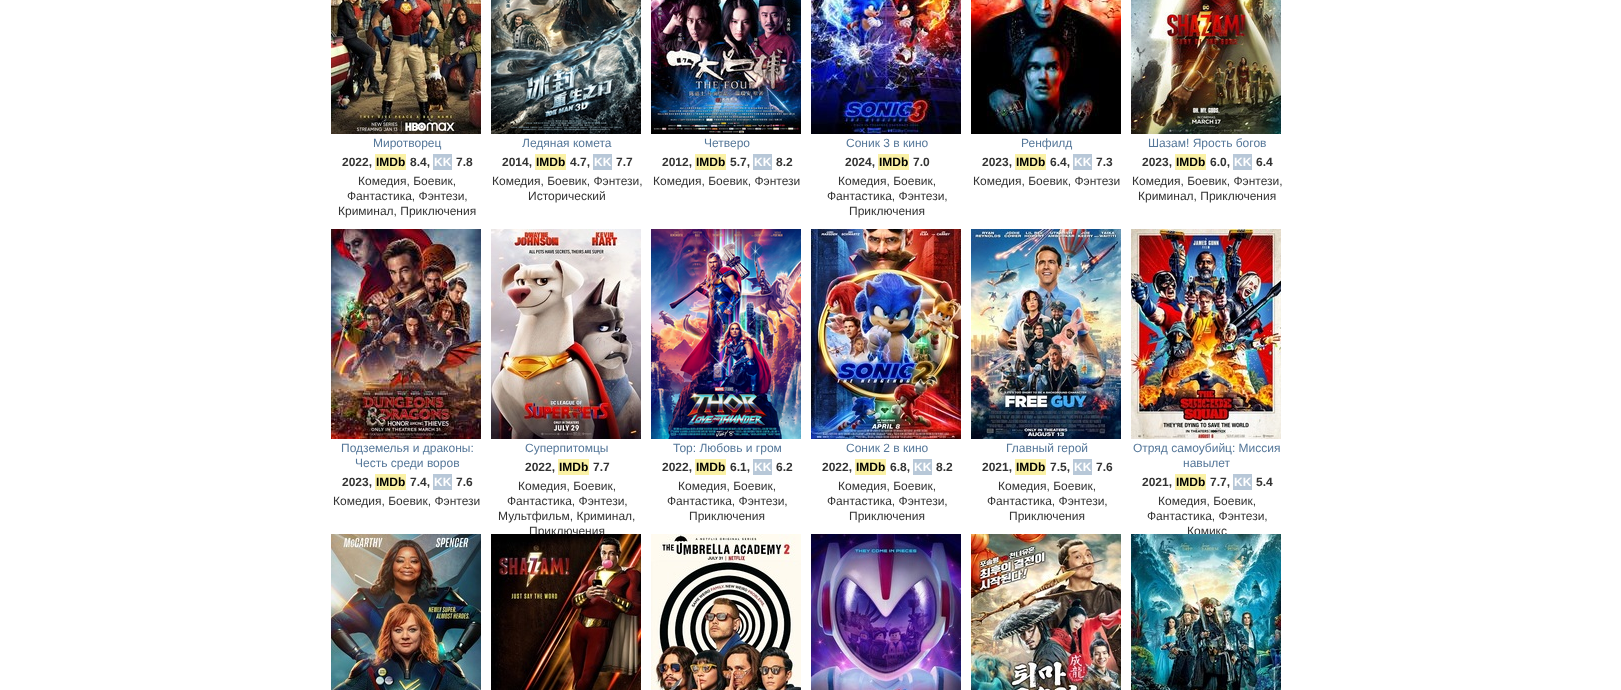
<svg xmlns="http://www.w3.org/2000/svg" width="1621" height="690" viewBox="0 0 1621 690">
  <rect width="100%" height="100%" fill="#ffffff"/>
  <image x="331" y="0" width="150" height="134" href="img1.png"/>
  <text x="373" y="147" font-family="Liberation Sans" font-size="12" fill="#557799">Миротворец</text>
  <text x="342" y="166" font-family="Liberation Sans" font-size="12" font-weight="bold" fill="#333333">2022,</text>
  <rect x="375" y="154" width="31" height="16" fill="#faf1a5"/>
  <text x="376" y="166" font-family="Liberation Sans" font-size="12" font-weight="bold" fill="#000000">IMDb</text>
  <text x="410" y="166" font-family="Liberation Sans" font-size="12" font-weight="bold" fill="#333333">8.4,</text>
  <rect x="433" y="154" width="19" height="16" fill="#b8c8d8"/>
  <text x="434" y="166" font-family="Liberation Sans" font-size="12" font-weight="bold" fill="#ffffff">KK</text>
  <text x="456" y="166" font-family="Liberation Sans" font-size="12" font-weight="bold" fill="#333333">7.8</text>
  <text x="358" y="185" font-family="Liberation Sans" font-size="12" fill="#333333">Комедия, Боевик,</text>
  <text x="347" y="200" font-family="Liberation Sans" font-size="12" fill="#333333">Фантастика, Фэнтези,</text>
  <text x="338" y="215" font-family="Liberation Sans" font-size="12" fill="#333333">Криминал, Приключения</text>
  <image x="491" y="0" width="150" height="134" href="img2.png"/>
  <text x="522" y="147" font-family="Liberation Sans" font-size="12" fill="#557799">Ледяная комета</text>
  <text x="502" y="166" font-family="Liberation Sans" font-size="12" font-weight="bold" fill="#333333">2014,</text>
  <rect x="535" y="154" width="31" height="16" fill="#faf1a5"/>
  <text x="536" y="166" font-family="Liberation Sans" font-size="12" font-weight="bold" fill="#000000">IMDb</text>
  <text x="570" y="166" font-family="Liberation Sans" font-size="12" font-weight="bold" fill="#333333">4.7,</text>
  <rect x="593" y="154" width="19" height="16" fill="#b8c8d8"/>
  <text x="594" y="166" font-family="Liberation Sans" font-size="12" font-weight="bold" fill="#ffffff">KK</text>
  <text x="616" y="166" font-family="Liberation Sans" font-size="12" font-weight="bold" fill="#333333">7.7</text>
  <text x="492" y="185" font-family="Liberation Sans" font-size="12" fill="#333333">Комедия, Боевик, Фэнтези,</text>
  <text x="528" y="200" font-family="Liberation Sans" font-size="12" fill="#333333">Исторический</text>
  <image x="651" y="0" width="150" height="134" href="img3.png"/>
  <text x="704" y="147" font-family="Liberation Sans" font-size="12" fill="#557799">Четверо</text>
  <text x="662" y="166" font-family="Liberation Sans" font-size="12" font-weight="bold" fill="#333333">2012,</text>
  <rect x="695" y="154" width="31" height="16" fill="#faf1a5"/>
  <text x="696" y="166" font-family="Liberation Sans" font-size="12" font-weight="bold" fill="#000000">IMDb</text>
  <text x="730" y="166" font-family="Liberation Sans" font-size="12" font-weight="bold" fill="#333333">5.7,</text>
  <rect x="753" y="154" width="19" height="16" fill="#b8c8d8"/>
  <text x="754" y="166" font-family="Liberation Sans" font-size="12" font-weight="bold" fill="#ffffff">KK</text>
  <text x="776" y="166" font-family="Liberation Sans" font-size="12" font-weight="bold" fill="#333333">8.2</text>
  <text x="653" y="185" font-family="Liberation Sans" font-size="12" fill="#333333">Комедия, Боевик, Фэнтези</text>
  <image x="811" y="0" width="150" height="134" href="img4.png"/>
  <text x="846" y="147" font-family="Liberation Sans" font-size="12" fill="#557799">Соник 3 в кино</text>
  <text x="845" y="166" font-family="Liberation Sans" font-size="12" font-weight="bold" fill="#333333">2024,</text>
  <rect x="878" y="154" width="31" height="16" fill="#faf1a5"/>
  <text x="879" y="166" font-family="Liberation Sans" font-size="12" font-weight="bold" fill="#000000">IMDb</text>
  <text x="913" y="166" font-family="Liberation Sans" font-size="12" font-weight="bold" fill="#333333">7.0</text>
  <text x="838" y="185" font-family="Liberation Sans" font-size="12" fill="#333333">Комедия, Боевик,</text>
  <text x="827" y="200" font-family="Liberation Sans" font-size="12" fill="#333333">Фантастика, Фэнтези,</text>
  <text x="849" y="215" font-family="Liberation Sans" font-size="12" fill="#333333">Приключения</text>
  <image x="971" y="0" width="150" height="134" href="img5.png"/>
  <text x="1021" y="147" font-family="Liberation Sans" font-size="12" fill="#557799">Ренфилд</text>
  <text x="982" y="166" font-family="Liberation Sans" font-size="12" font-weight="bold" fill="#333333">2023,</text>
  <rect x="1015" y="154" width="31" height="16" fill="#faf1a5"/>
  <text x="1016" y="166" font-family="Liberation Sans" font-size="12" font-weight="bold" fill="#000000">IMDb</text>
  <text x="1050" y="166" font-family="Liberation Sans" font-size="12" font-weight="bold" fill="#333333">6.4,</text>
  <rect x="1073" y="154" width="19" height="16" fill="#b8c8d8"/>
  <text x="1074" y="166" font-family="Liberation Sans" font-size="12" font-weight="bold" fill="#ffffff">KK</text>
  <text x="1096" y="166" font-family="Liberation Sans" font-size="12" font-weight="bold" fill="#333333">7.3</text>
  <text x="973" y="185" font-family="Liberation Sans" font-size="12" fill="#333333">Комедия, Боевик, Фэнтези</text>
  <image x="1131" y="0" width="150" height="134" href="img6.png"/>
  <text x="1148" y="147" font-family="Liberation Sans" font-size="12" fill="#557799">Шазам! Ярость богов</text>
  <text x="1142" y="166" font-family="Liberation Sans" font-size="12" font-weight="bold" fill="#333333">2023,</text>
  <rect x="1175" y="154" width="31" height="16" fill="#faf1a5"/>
  <text x="1176" y="166" font-family="Liberation Sans" font-size="12" font-weight="bold" fill="#000000">IMDb</text>
  <text x="1210" y="166" font-family="Liberation Sans" font-size="12" font-weight="bold" fill="#333333">6.0,</text>
  <rect x="1233" y="154" width="19" height="16" fill="#b8c8d8"/>
  <text x="1234" y="166" font-family="Liberation Sans" font-size="12" font-weight="bold" fill="#ffffff">KK</text>
  <text x="1256" y="166" font-family="Liberation Sans" font-size="12" font-weight="bold" fill="#333333">6.4</text>
  <text x="1132" y="185" font-family="Liberation Sans" font-size="12" fill="#333333">Комедия, Боевик, Фэнтези,</text>
  <text x="1138" y="200" font-family="Liberation Sans" font-size="12" fill="#333333">Криминал, Приключения</text>
  <image x="331" y="229" width="150" height="210" href="img7.png"/>
  <text x="341" y="452" font-family="Liberation Sans" font-size="12" fill="#557799">Подземелья и драконы:</text>
  <text x="355" y="467" font-family="Liberation Sans" font-size="12" fill="#557799">Честь среди воров</text>
  <text x="342" y="486" font-family="Liberation Sans" font-size="12" font-weight="bold" fill="#333333">2023,</text>
  <rect x="375" y="474" width="31" height="16" fill="#faf1a5"/>
  <text x="376" y="486" font-family="Liberation Sans" font-size="12" font-weight="bold" fill="#000000">IMDb</text>
  <text x="410" y="486" font-family="Liberation Sans" font-size="12" font-weight="bold" fill="#333333">7.4,</text>
  <rect x="433" y="474" width="19" height="16" fill="#b8c8d8"/>
  <text x="434" y="486" font-family="Liberation Sans" font-size="12" font-weight="bold" fill="#ffffff">KK</text>
  <text x="456" y="486" font-family="Liberation Sans" font-size="12" font-weight="bold" fill="#333333">7.6</text>
  <text x="333" y="505" font-family="Liberation Sans" font-size="12" fill="#333333">Комедия, Боевик, Фэнтези</text>
  <image x="491" y="229" width="150" height="210" href="img8.png"/>
  <text x="525" y="452" font-family="Liberation Sans" font-size="12" fill="#557799">Суперпитомцы</text>
  <text x="525" y="471" font-family="Liberation Sans" font-size="12" font-weight="bold" fill="#333333">2022,</text>
  <rect x="558" y="459" width="31" height="16" fill="#faf1a5"/>
  <text x="559" y="471" font-family="Liberation Sans" font-size="12" font-weight="bold" fill="#000000">IMDb</text>
  <text x="593" y="471" font-family="Liberation Sans" font-size="12" font-weight="bold" fill="#333333">7.7</text>
  <text x="518" y="490" font-family="Liberation Sans" font-size="12" fill="#333333">Комедия, Боевик,</text>
  <text x="507" y="505" font-family="Liberation Sans" font-size="12" fill="#333333">Фантастика, Фэнтези,</text>
  <text x="498" y="520" font-family="Liberation Sans" font-size="12" fill="#333333">Мультфильм, Криминал,</text>
  <text x="529" y="535" font-family="Liberation Sans" font-size="12" fill="#333333">Приключения</text>
  <image x="651" y="229" width="150" height="210" href="img9.png"/>
  <text x="673" y="452" font-family="Liberation Sans" font-size="12" fill="#557799">Тор: Любовь и гром</text>
  <text x="662" y="471" font-family="Liberation Sans" font-size="12" font-weight="bold" fill="#333333">2022,</text>
  <rect x="695" y="459" width="31" height="16" fill="#faf1a5"/>
  <text x="696" y="471" font-family="Liberation Sans" font-size="12" font-weight="bold" fill="#000000">IMDb</text>
  <text x="730" y="471" font-family="Liberation Sans" font-size="12" font-weight="bold" fill="#333333">6.1,</text>
  <rect x="753" y="459" width="19" height="16" fill="#b8c8d8"/>
  <text x="754" y="471" font-family="Liberation Sans" font-size="12" font-weight="bold" fill="#ffffff">KK</text>
  <text x="776" y="471" font-family="Liberation Sans" font-size="12" font-weight="bold" fill="#333333">6.2</text>
  <text x="678" y="490" font-family="Liberation Sans" font-size="12" fill="#333333">Комедия, Боевик,</text>
  <text x="667" y="505" font-family="Liberation Sans" font-size="12" fill="#333333">Фантастика, Фэнтези,</text>
  <text x="689" y="520" font-family="Liberation Sans" font-size="12" fill="#333333">Приключения</text>
  <image x="811" y="229" width="150" height="210" href="img10.png"/>
  <text x="846" y="452" font-family="Liberation Sans" font-size="12" fill="#557799">Соник 2 в кино</text>
  <text x="822" y="471" font-family="Liberation Sans" font-size="12" font-weight="bold" fill="#333333">2022,</text>
  <rect x="855" y="459" width="31" height="16" fill="#faf1a5"/>
  <text x="856" y="471" font-family="Liberation Sans" font-size="12" font-weight="bold" fill="#000000">IMDb</text>
  <text x="890" y="471" font-family="Liberation Sans" font-size="12" font-weight="bold" fill="#333333">6.8,</text>
  <rect x="913" y="459" width="19" height="16" fill="#b8c8d8"/>
  <text x="914" y="471" font-family="Liberation Sans" font-size="12" font-weight="bold" fill="#ffffff">KK</text>
  <text x="936" y="471" font-family="Liberation Sans" font-size="12" font-weight="bold" fill="#333333">8.2</text>
  <text x="838" y="490" font-family="Liberation Sans" font-size="12" fill="#333333">Комедия, Боевик,</text>
  <text x="827" y="505" font-family="Liberation Sans" font-size="12" fill="#333333">Фантастика, Фэнтези,</text>
  <text x="849" y="520" font-family="Liberation Sans" font-size="12" fill="#333333">Приключения</text>
  <image x="971" y="229" width="150" height="210" href="img11.png"/>
  <text x="1006" y="452" font-family="Liberation Sans" font-size="12" fill="#557799">Главный герой</text>
  <text x="982" y="471" font-family="Liberation Sans" font-size="12" font-weight="bold" fill="#333333">2021,</text>
  <rect x="1015" y="459" width="31" height="16" fill="#faf1a5"/>
  <text x="1016" y="471" font-family="Liberation Sans" font-size="12" font-weight="bold" fill="#000000">IMDb</text>
  <text x="1050" y="471" font-family="Liberation Sans" font-size="12" font-weight="bold" fill="#333333">7.5,</text>
  <rect x="1073" y="459" width="19" height="16" fill="#b8c8d8"/>
  <text x="1074" y="471" font-family="Liberation Sans" font-size="12" font-weight="bold" fill="#ffffff">KK</text>
  <text x="1096" y="471" font-family="Liberation Sans" font-size="12" font-weight="bold" fill="#333333">7.6</text>
  <text x="998" y="490" font-family="Liberation Sans" font-size="12" fill="#333333">Комедия, Боевик,</text>
  <text x="987" y="505" font-family="Liberation Sans" font-size="12" fill="#333333">Фантастика, Фэнтези,</text>
  <text x="1009" y="520" font-family="Liberation Sans" font-size="12" fill="#333333">Приключения</text>
  <image x="1131" y="229" width="150" height="210" href="img12.png"/>
  <text x="1133" y="452" font-family="Liberation Sans" font-size="12" fill="#557799">Отряд самоубийц: Миссия</text>
  <text x="1183" y="467" font-family="Liberation Sans" font-size="12" fill="#557799">навылет</text>
  <text x="1142" y="486" font-family="Liberation Sans" font-size="12" font-weight="bold" fill="#333333">2021,</text>
  <rect x="1175" y="474" width="31" height="16" fill="#faf1a5"/>
  <text x="1176" y="486" font-family="Liberation Sans" font-size="12" font-weight="bold" fill="#000000">IMDb</text>
  <text x="1210" y="486" font-family="Liberation Sans" font-size="12" font-weight="bold" fill="#333333">7.7,</text>
  <rect x="1233" y="474" width="19" height="16" fill="#b8c8d8"/>
  <text x="1234" y="486" font-family="Liberation Sans" font-size="12" font-weight="bold" fill="#ffffff">KK</text>
  <text x="1256" y="486" font-family="Liberation Sans" font-size="12" font-weight="bold" fill="#333333">5.4</text>
  <text x="1158" y="505" font-family="Liberation Sans" font-size="12" fill="#333333">Комедия, Боевик,</text>
  <text x="1147" y="520" font-family="Liberation Sans" font-size="12" fill="#333333">Фантастика, Фэнтези,</text>
  <text x="1187" y="535" font-family="Liberation Sans" font-size="12" fill="#333333">Комикс</text>
  <image x="331" y="534" width="150" height="156" href="img13.png"/>
  <image x="491" y="534" width="150" height="156" href="img14.png"/>
  <image x="651" y="534" width="150" height="156" href="img15.png"/>
  <image x="811" y="534" width="150" height="156" href="img16.png"/>
  <image x="971" y="534" width="150" height="156" href="img17.png"/>
  <image x="1131" y="534" width="150" height="156" href="img18.png"/>
</svg>
